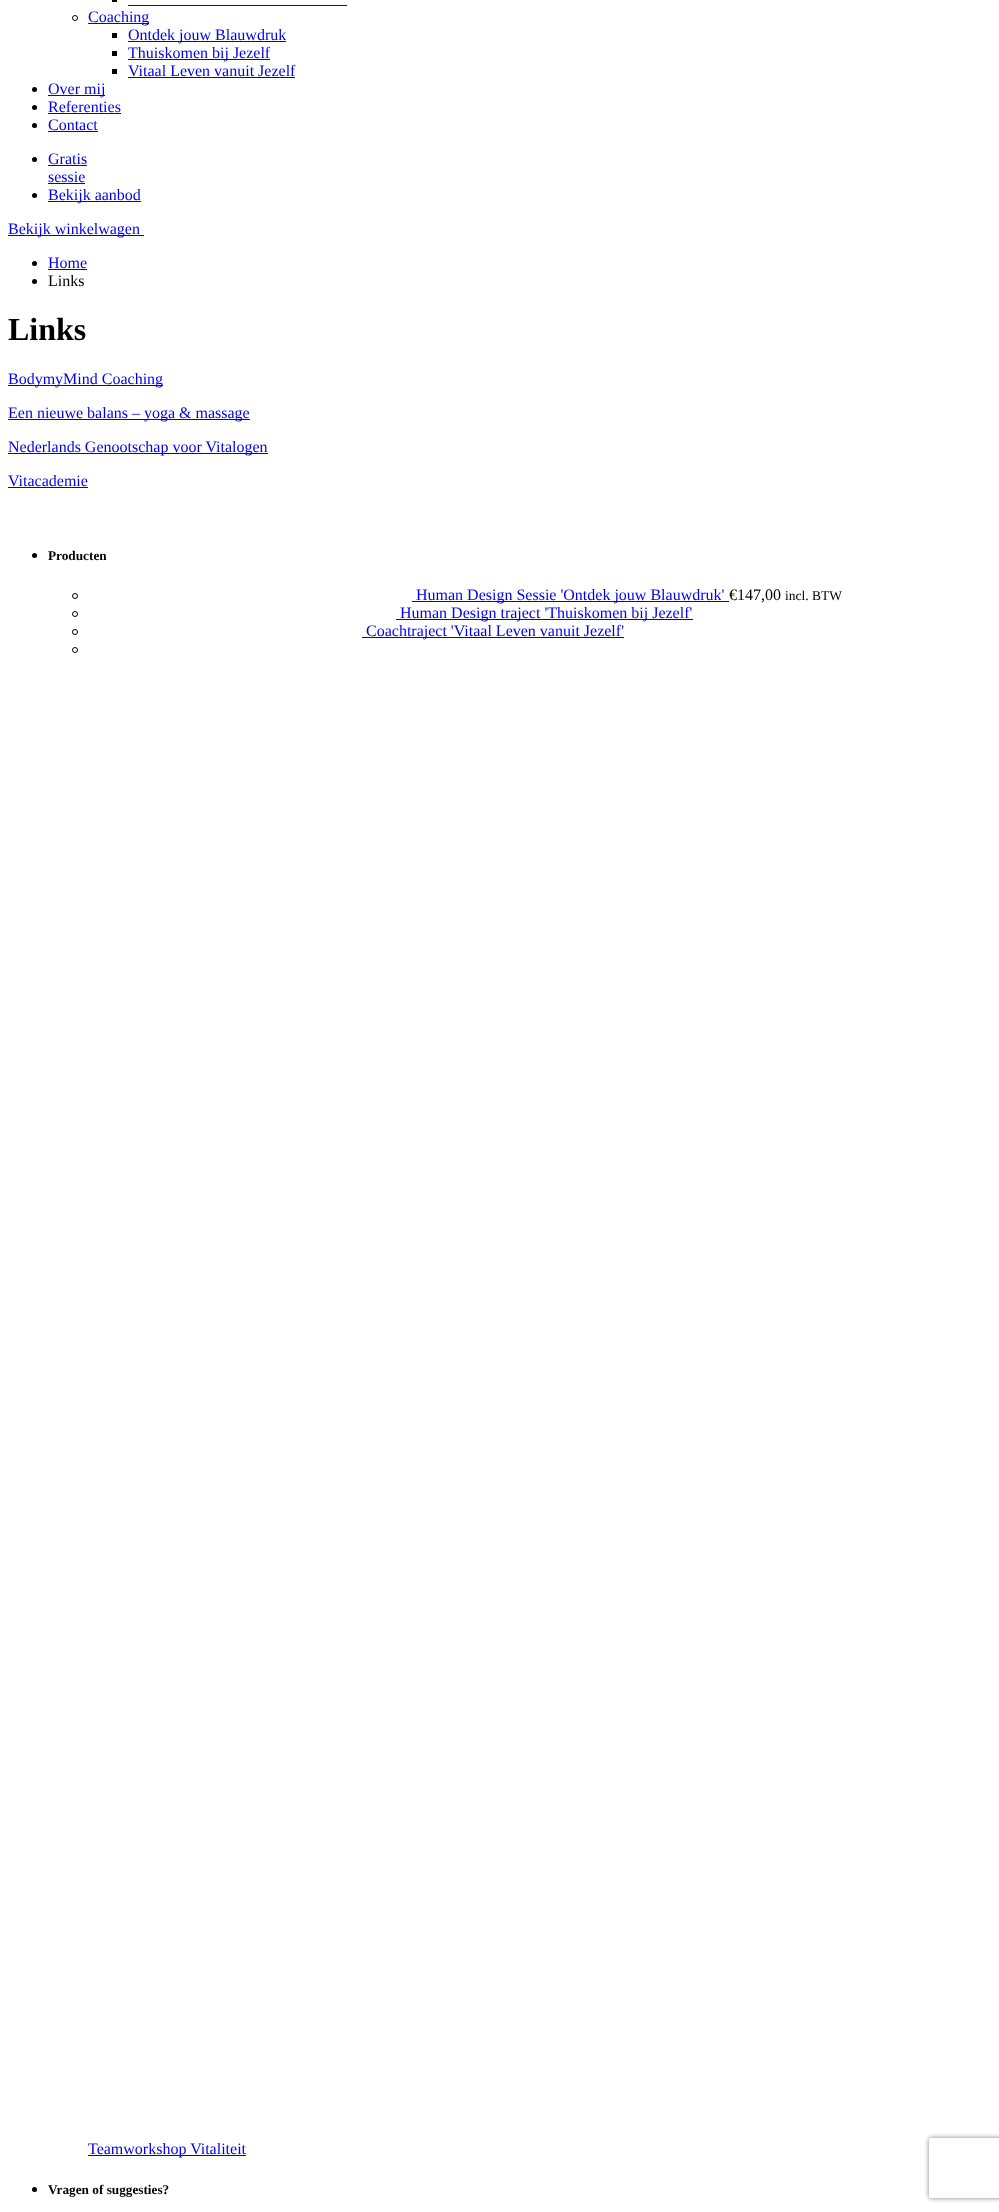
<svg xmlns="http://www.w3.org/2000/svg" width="999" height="2212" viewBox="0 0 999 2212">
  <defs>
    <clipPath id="clip1"><path d="M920 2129H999V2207H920ZM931 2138H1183C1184 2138 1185 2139 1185 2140V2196C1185 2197 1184 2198 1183 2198H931C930 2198 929 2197 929 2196V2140C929 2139 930 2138 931 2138Z" clip-rule="evenodd"/></clipPath>
    <filter id="blur1" x="-50%" y="-200%" width="200%" height="500%"><feGaussianBlur stdDeviation="2.5"/></filter>
  </defs>
  <rect width="100%" height="100%" fill="#ffffff"/>
  <rect x="112" y="0" width="5" height="2" fill="#000000"/>
  <rect x="128" y="5" width="219" height="1" fill="#0000ee"/>
  <circle cx="75" cy="18" r="2.5" fill="none" stroke="#000000"/>
  <rect x="88" y="23" width="61" height="1" fill="#0000ee"/>
  <text x="88" y="22" font-family="Liberation Serif" font-size="16" fill="#0000ee">Coaching</text>
  <rect x="112" y="33" width="5" height="5" fill="#000000"/>
  <rect x="128" y="41" width="158" height="1" fill="#0000ee"/>
  <text x="128" y="40" font-family="Liberation Serif" font-size="16" fill="#0000ee">Ontdek jouw Blauwdruk</text>
  <rect x="112" y="51" width="5" height="5" fill="#000000"/>
  <rect x="128" y="59" width="142" height="1" fill="#0000ee"/>
  <text x="128" y="58" font-family="Liberation Serif" font-size="16" fill="#0000ee">Thuiskomen bij Jezelf</text>
  <rect x="112" y="69" width="5" height="5" fill="#000000"/>
  <text x="128" y="76" font-family="Liberation Serif" font-size="16" fill="#0000ee">Vitaal Leven vanuit Jezelf</text>
  <rect x="128" y="77" width="167" height="1" fill="#0000ee"/>
  <circle cx="34.5" cy="89.5" r="2.5" fill="#000000"/>
  <rect x="48" y="95" width="57" height="1" fill="#0000ee"/>
  <text x="48" y="94" font-family="Liberation Serif" font-size="16" fill="#0000ee">Over mij</text>
  <circle cx="34.5" cy="107.5" r="2.5" fill="#000000"/>
  <text x="48" y="112" font-family="Liberation Serif" font-size="16" fill="#0000ee">Referenties</text>
  <rect x="48" y="113" width="73" height="1" fill="#0000ee"/>
  <circle cx="34.5" cy="125.5" r="2.5" fill="#000000"/>
  <text x="48" y="130" font-family="Liberation Serif" font-size="16" fill="#0000ee">Contact</text>
  <rect x="48" y="131" width="50" height="1" fill="#0000ee"/>
  <circle cx="34.5" cy="159.5" r="2.5" fill="#000000"/>
  <text x="48" y="164" font-family="Liberation Serif" font-size="16" fill="#0000ee">Gratis</text>
  <rect x="48" y="165" width="39" height="1" fill="#0000ee"/>
  <text x="48" y="182" font-family="Liberation Serif" font-size="16" fill="#0000ee">sessie</text>
  <rect x="48" y="183" width="37" height="1" fill="#0000ee"/>
  <circle cx="34.5" cy="195.5" r="2.5" fill="#000000"/>
  <rect x="48" y="201" width="93" height="1" fill="#0000ee"/>
  <text x="48" y="200" font-family="Liberation Serif" font-size="16" fill="#0000ee">Bekijk aanbod</text>
  <rect x="8" y="235" width="136" height="1" fill="#0000ee"/>
  <text x="8" y="234" font-family="Liberation Serif" font-size="16" fill="#0000ee">Bekijk winkelwagen</text>
  <circle cx="34.5" cy="263.5" r="2.5" fill="#000000"/>
  <text x="48" y="268" font-family="Liberation Serif" font-size="16" fill="#0000ee">Home</text>
  <rect x="48" y="269" width="39" height="1" fill="#0000ee"/>
  <circle cx="34.5" cy="281.5" r="2.5" fill="#000000"/>
  <text x="48" y="286" font-family="Liberation Serif" font-size="16" fill="#000000">Links</text>
  <text x="8" y="340" font-family="Liberation Serif" font-size="32" font-weight="bold" fill="#000000">Links</text>
  <rect x="8" y="385" width="155" height="1" fill="#0000ee"/>
  <text x="8" y="384" font-family="Liberation Serif" font-size="16" fill="#0000ee">BodymyMind Coaching</text>
  <rect x="8" y="419" width="242" height="1" fill="#0000ee"/>
  <text x="8" y="418" font-family="Liberation Serif" font-size="16" fill="#0000ee">Een nieuwe balans – yoga &amp; massage</text>
  <rect x="8" y="453" width="260" height="1" fill="#0000ee"/>
  <text x="8" y="452" font-family="Liberation Serif" font-size="16" fill="#0000ee">Nederlands Genootschap voor Vitalogen</text>
  <text x="8" y="486" font-family="Liberation Serif" font-size="16" fill="#0000ee">Vitacademie</text>
  <rect x="8" y="487" width="80" height="1" fill="#0000ee"/>
  <circle cx="34.5" cy="555.5" r="2.5" fill="#000000"/>
  <text x="48" y="560" font-family="Liberation Serif" font-size="13.25" font-weight="bold" fill="#000000">Producten</text>
  <circle cx="75" cy="596" r="2.5" fill="none" stroke="#000000"/>
  <rect x="412" y="601" width="317" height="1" fill="#0000ee"/>
  <text x="416" y="600" font-family="Liberation Serif" font-size="16" fill="#0000ee">Human Design Sessie 'Ontdek jouw Blauwdruk'</text>
  <text x="729" y="600" font-family="Liberation Serif" font-size="16" fill="#000000">€147,00</text>
  <text x="785" y="600" font-family="Liberation Serif" font-size="13.5" fill="#000000">incl. BTW</text>
  <circle cx="75" cy="614" r="2.5" fill="none" stroke="#000000"/>
  <rect x="396" y="619" width="297" height="1" fill="#0000ee"/>
  <text x="400" y="618" font-family="Liberation Serif" font-size="16" fill="#0000ee">Human Design traject 'Thuiskomen bij Jezelf'</text>
  <circle cx="75" cy="632" r="2.5" fill="none" stroke="#000000"/>
  <rect x="362" y="637" width="262" height="1" fill="#0000ee"/>
  <text x="366" y="636" font-family="Liberation Serif" font-size="16" fill="#0000ee">Coachtraject 'Vitaal Leven vanuit Jezelf'</text>
  <circle cx="75" cy="650" r="2.5" fill="none" stroke="#000000"/>
  <rect x="88" y="2155" width="158" height="1" fill="#0000ee"/>
  <text x="88" y="2154" font-family="Liberation Serif" font-size="16" fill="#0000ee">Teamworkshop Vitaliteit</text>
  <circle cx="34.5" cy="2189.5" r="2.5" fill="#000000"/>
  <text x="48" y="2194" font-family="Liberation Serif" font-size="13.25" font-weight="bold" fill="#000000">Vragen of suggesties?</text>
  <g clip-path="url(#clip1)">
    <rect x="929" y="2138" width="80" height="60" rx="2" fill="#808080" filter="url(#blur1)"/>
  </g>
</svg>
